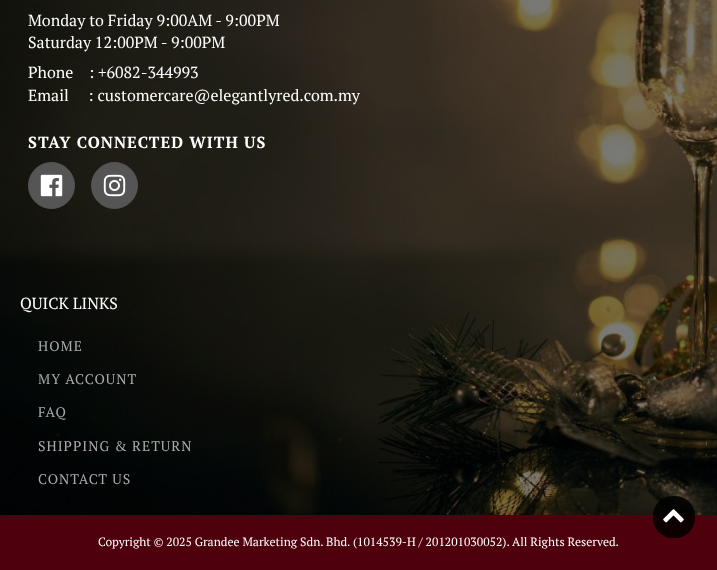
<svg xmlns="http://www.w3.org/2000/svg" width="717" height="570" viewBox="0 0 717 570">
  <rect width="100%" height="100%" fill="#ffffff"/>
  <image x="0" y="0" width="717" height="515" href="img1.png"/>
  <text x="28" y="26" font-family="PT Serif" font-size="16" fill="#ffffff">Monday to Friday 9:00AM - 9:00PM</text>
  <text x="28" y="48" font-family="PT Serif" font-size="16" fill="#ffffff">Saturday 12:00PM - 9:00PM</text>
  <text x="28" y="78" font-family="PT Serif" font-size="16" fill="#ffffff" xml:space="preserve">Phone    : +6082-344993</text>
  <text x="28" y="101" font-family="PT Serif" font-size="16" fill="#ffffff" xml:space="preserve">Email     : customercare@elegantlyred.com.my</text>
  <text x="28" y="148" font-family="PT Serif" font-size="16" font-weight="bold" letter-spacing="1" fill="#ffffff">STAY CONNECTED WITH US</text>
  <circle cx="51.5" cy="185.5" r="23" fill="#555555" stroke="#555555"/>
  <image x="40" y="174" width="23" height="23" href="img2.png"/>
  <circle cx="114.5" cy="185.5" r="23" fill="#555555" stroke="#555555"/>
  <image x="103" y="174" width="23" height="23" href="img3.png"/>
  <text x="20" y="309" font-family="PT Serif" font-size="16" fill="#ffffff">QUICK LINKS</text>
  <text x="38" y="351" font-family="PT Serif" font-size="14" letter-spacing="1" fill="#aaacab">HOME</text>
  <text x="38" y="384" font-family="PT Serif" font-size="14" letter-spacing="1" fill="#aaacab">MY ACCOUNT</text>
  <text x="38" y="417" font-family="PT Serif" font-size="14" letter-spacing="1" fill="#aaacab">FAQ</text>
  <text x="38" y="451" font-family="PT Serif" font-size="14" letter-spacing="1" fill="#aaacab">SHIPPING &amp; RETURN</text>
  <text x="38" y="484" font-family="PT Serif" font-size="14" letter-spacing="1" fill="#aaacab">CONTACT US</text>
  <rect x="0" y="515" width="717" height="55" fill="#4f000d"/>
  <text x="98" y="546" font-family="PT Serif" font-size="12" fill="#ffffff">Copyright © 2025 Grandee Marketing Sdn. Bhd. (1014539-H / 201201030052). All Rights Reserved.</text>
  <rect x="653" y="496" width="42" height="42" rx="20" fill="#000000" fill-opacity="0.85"/>
  <image x="663" y="509" width="21" height="14" href="img4.png"/>
</svg>
